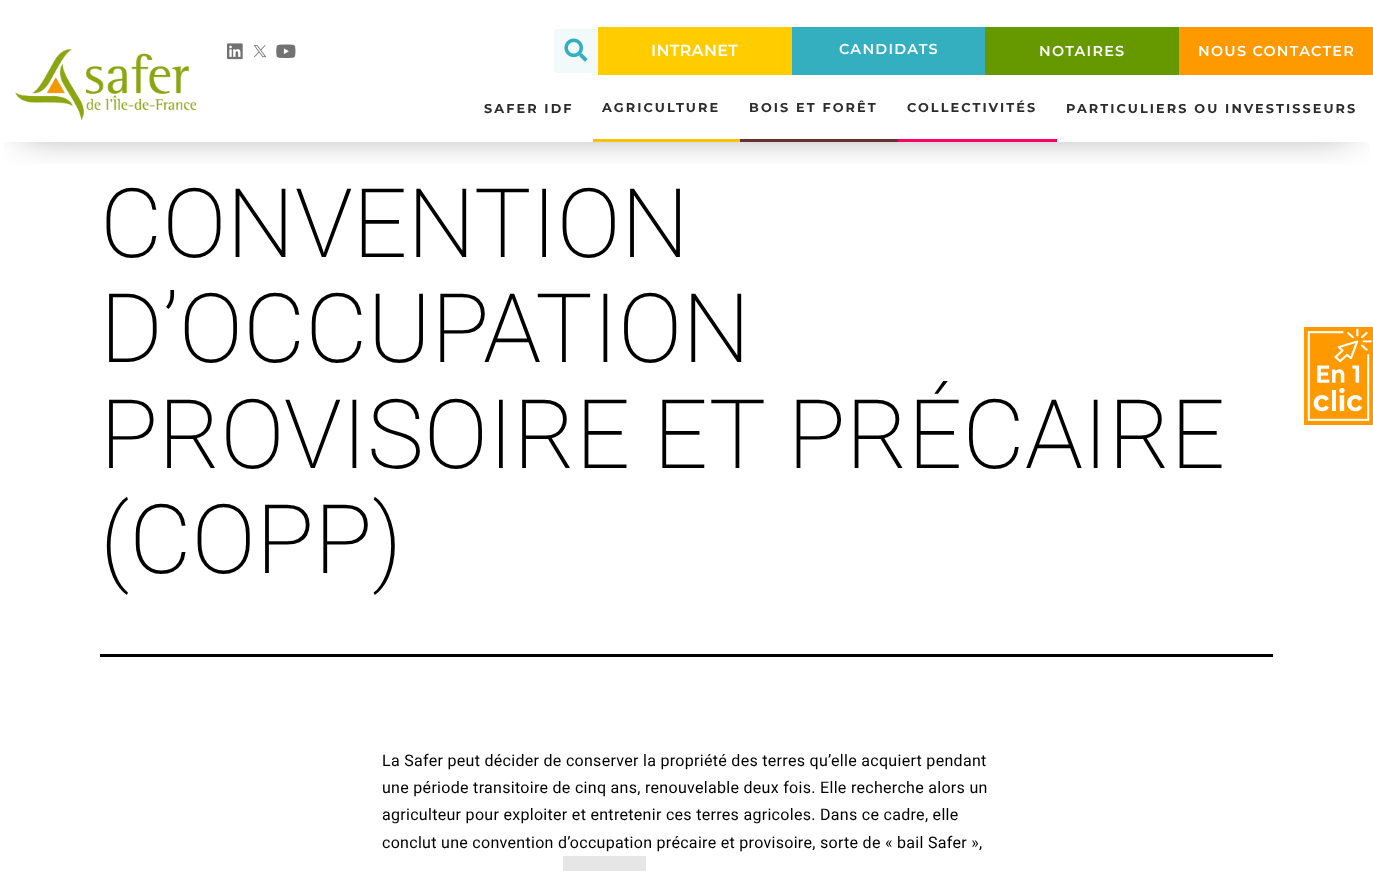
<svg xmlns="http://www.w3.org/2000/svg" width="1373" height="871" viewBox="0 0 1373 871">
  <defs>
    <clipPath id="clip1"><rect x="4" y="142" width="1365" height="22"/></clipPath>
    <filter id="blur1" x="-50%" y="-200%" width="200%" height="500%"><feGaussianBlur stdDeviation="19.5"/></filter>
  </defs>
  <rect width="100%" height="100%" fill="#ffffff"/>
  <g clip-path="url(#clip1)">
    <rect x="24" y="63" width="1325" height="67" fill="#000000" fill-opacity="0.5" filter="url(#blur1)"/>
  </g>
  <image x="15" y="49" width="181" height="71" href="img1.png"/>
  <image x="226" y="43" width="17" height="17" href="img2.png"/>
  <image x="253" y="45" width="14" height="13" href="img3.png"/>
  <image x="276" y="44" width="20" height="14" href="img4.png"/>
  <rect x="554" y="29" width="44" height="44" rx="3" fill="#f1f9fb"/>
  <image x="564" y="38" width="24" height="24" href="img5.png"/>
  <rect x="598" y="27" width="194" height="48" fill="#ffcc00"/>
  <text x="651" y="56" font-family="Montserrat" font-size="16" font-weight="600" letter-spacing="0.3" fill="#ffffff">INTRANET</text>
  <rect x="792" y="27" width="193" height="48" fill="#34afc0"/>
  <text x="839" y="54" font-family="Montserrat" font-size="14.4" font-weight="600" letter-spacing="1.25" fill="#ffffff">CANDIDATS</text>
  <rect x="985" y="27" width="194" height="48" fill="#669900"/>
  <text x="1039" y="56" font-family="Montserrat" font-size="14.4" font-weight="600" letter-spacing="1.25" fill="#ffffff">NOTAIRES</text>
  <rect x="1179" y="27" width="194" height="48" fill="#ff9900"/>
  <text x="1198" y="56" font-family="Montserrat" font-size="14.4" font-weight="600" letter-spacing="1.25" fill="#ffffff">NOUS CONTACTER</text>
  <text x="484" y="113" font-family="Montserrat" font-size="12.8" font-weight="bold" letter-spacing="2.1" fill="#2d2d2d">SAFER IDF</text>
  <rect x="593" y="139" width="147" height="3" fill="#ffc107"/>
  <text x="602" y="112" font-family="Montserrat" font-size="12.8" font-weight="bold" letter-spacing="2.1" fill="#2d2d2d">AGRICULTURE</text>
  <rect x="740" y="139" width="158" height="3" fill="#663333"/>
  <text x="749" y="112" font-family="Montserrat" font-size="12.8" font-weight="bold" letter-spacing="2.1" fill="#2d2d2d">BOIS ET FORÊT</text>
  <rect x="898" y="139" width="159" height="3" fill="#ff0066"/>
  <text x="907" y="112" font-family="Montserrat" font-size="12.8" font-weight="bold" letter-spacing="2.1" fill="#2d2d2d">COLLECTIVITÉS</text>
  <text x="1066" y="113" font-family="Montserrat" font-size="12.8" font-weight="bold" letter-spacing="2.1" fill="#2d2d2d">PARTICULIERS OU INVESTISSEURS</text>
  <rect x="100" y="654" width="1173" height="3" fill="#000000"/>
  <text x="100" y="257" font-family="Roboto" font-size="96" font-weight="200" fill="#000000">CONVENTION</text>
  <text x="100" y="362" font-family="Roboto" font-size="96" font-weight="200" fill="#000000">D’OCCUPATION</text>
  <text x="100" y="468" font-family="Roboto" font-size="96" font-weight="200" fill="#000000">PROVISOIRE ET PRÉCAIRE</text>
  <text x="100" y="573" font-family="Roboto" font-size="96" font-weight="200" fill="#000000">(COPP)</text>
  <text x="382" y="766" font-family="Roboto" font-size="16" letter-spacing="0.3" fill="#000000">La Safer peut décider de conserver la propriété des terres qu’elle acquiert pendant</text>
  <text x="382" y="793" font-family="Roboto" font-size="16" letter-spacing="0.3" fill="#000000">une période transitoire de cinq ans, renouvelable deux fois. Elle recherche alors un</text>
  <text x="382" y="820" font-family="Roboto" font-size="16" letter-spacing="0.3" fill="#000000">agriculteur pour exploiter et entretenir ces terres agricoles. Dans ce cadre, elle</text>
  <text x="382" y="848" font-family="Roboto" font-size="16" letter-spacing="0.3" fill="#000000">conclut une convention d’occupation précaire et provisoire, sorte de « bail Safer »,</text>
  <rect x="563" y="856" width="83" height="15" fill="#e6e6e6"/>
  <image x="1304" y="327" width="69" height="98" href="img6.png"/>
</svg>
